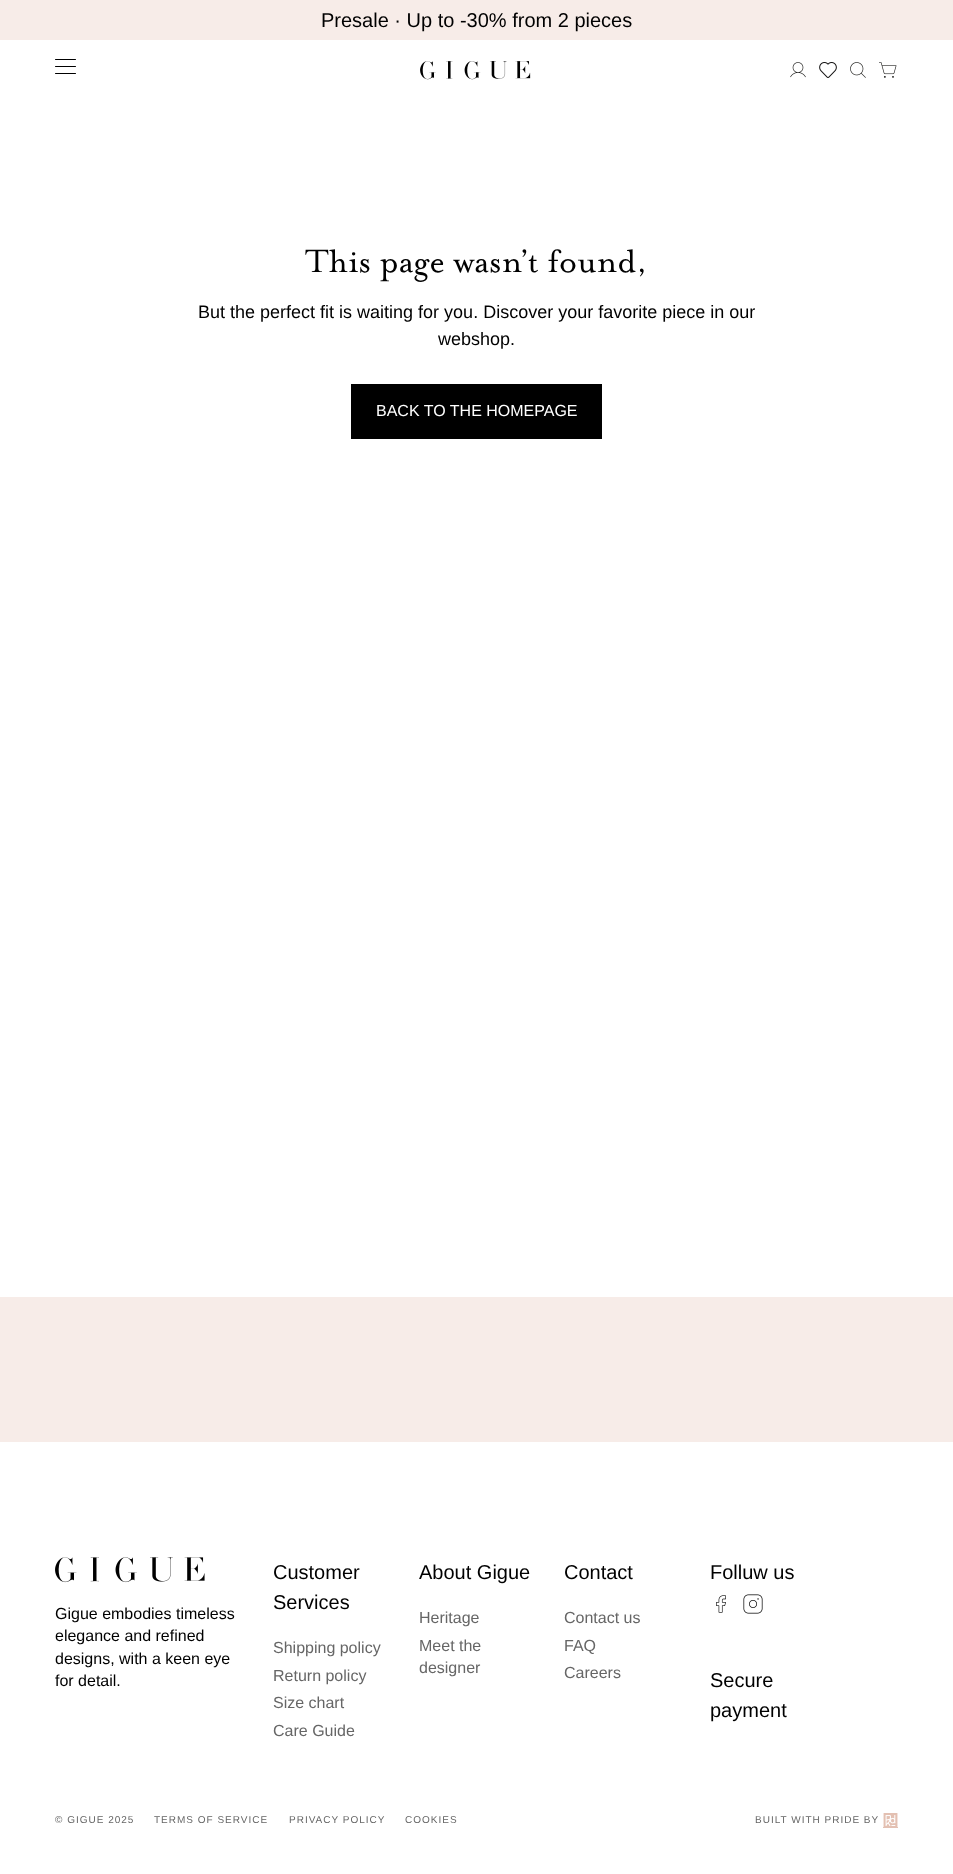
<svg xmlns="http://www.w3.org/2000/svg" width="953" height="1874" viewBox="0 0 953 1874">
  <rect width="100%" height="100%" fill="#ffffff"/>
  <rect x="0" y="0" width="953" height="40" fill="#f7ece8"/>
  <text x="321" y="27" font-family="Liberation Sans" font-size="20" fill="#000000">Presale · Up to -30% from 2 pieces</text>
  <rect x="55" y="59" width="21" height="1" rx="0.5" fill="#000000"/>
  <rect x="55" y="66" width="21" height="1" rx="0.5" fill="#000000"/>
  <rect x="55" y="73" width="21" height="1" rx="0.5" fill="#000000"/>
  <image x="420" y="61" width="111" height="19" href="img1.png"/>
  <image x="790" y="62" width="16" height="16" href="img2.png"/>
  <image x="819" y="62" width="18" height="16" href="img3.png"/>
  <image x="850" y="62" width="16" height="16" href="img4.png"/>
  <image x="879" y="62" width="18" height="16" href="img5.png"/>
  <text x="305" y="272" font-family="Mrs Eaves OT" font-size="37" fill="#000000">This page wasn’t found,</text>
  <text x="198" y="318" font-family="Liberation Sans" font-size="18" fill="#000000">But the perfect fit is waiting for you. Discover your favorite piece in our</text>
  <text x="438" y="345" font-family="Liberation Sans" font-size="18" fill="#000000">webshop.</text>
  <rect x="351" y="384" width="251" height="55" fill="#000000"/>
  <text x="376" y="416" font-family="Liberation Sans" font-size="16" fill="#ffffff">BACK TO THE HOMEPAGE</text>
  <rect x="0" y="1297" width="953" height="145" fill="#f7ece8"/>
  <image x="55" y="1557" width="150" height="26" href="img6.png"/>
  <text x="55" y="1619" font-family="Liberation Sans" font-size="16" fill="#000000">Gigue embodies timeless</text>
  <text x="55" y="1641" font-family="Liberation Sans" font-size="16" fill="#000000">elegance and refined</text>
  <text x="55" y="1664" font-family="Liberation Sans" font-size="16" fill="#000000">designs, with a keen eye</text>
  <text x="55" y="1686" font-family="Liberation Sans" font-size="16" fill="#000000">for detail.</text>
  <text x="273" y="1579" font-family="Liberation Sans" font-size="20" fill="#000000">Customer</text>
  <text x="273" y="1609" font-family="Liberation Sans" font-size="20" fill="#000000">Services</text>
  <text x="273" y="1653" font-family="Liberation Sans" font-size="16" fill="#666666">Shipping policy</text>
  <text x="273" y="1681" font-family="Liberation Sans" font-size="16" fill="#666666">Return policy</text>
  <text x="273" y="1708" font-family="Liberation Sans" font-size="16" fill="#666666">Size chart</text>
  <text x="273" y="1736" font-family="Liberation Sans" font-size="16" fill="#666666">Care Guide</text>
  <text x="419" y="1579" font-family="Liberation Sans" font-size="20" fill="#000000">About Gigue</text>
  <text x="419" y="1623" font-family="Liberation Sans" font-size="16" fill="#666666">Heritage</text>
  <text x="419" y="1651" font-family="Liberation Sans" font-size="16" fill="#666666">Meet the</text>
  <text x="419" y="1673" font-family="Liberation Sans" font-size="16" fill="#666666">designer</text>
  <text x="564" y="1579" font-family="Liberation Sans" font-size="20" fill="#000000">Contact</text>
  <text x="564" y="1623" font-family="Liberation Sans" font-size="16" fill="#666666">Contact us</text>
  <text x="564" y="1651" font-family="Liberation Sans" font-size="16" fill="#666666">FAQ</text>
  <text x="564" y="1678" font-family="Liberation Sans" font-size="16" fill="#666666">Careers</text>
  <text x="710" y="1579" font-family="Liberation Sans" font-size="20" fill="#000000">Folluw us</text>
  <image x="716" y="1595" width="10" height="18" href="img7.png"/>
  <image x="743" y="1594" width="20" height="20" href="img8.png"/>
  <text x="710" y="1687" font-family="Liberation Sans" font-size="20" fill="#000000">Secure</text>
  <text x="710" y="1717" font-family="Liberation Sans" font-size="20" fill="#000000">payment</text>
  <text x="55" y="1823" font-family="Liberation Sans" font-size="10" letter-spacing="1" fill="#666666">© GIGUE 2025</text>
  <text x="154" y="1823" font-family="Liberation Sans" font-size="10" letter-spacing="1" fill="#666666">TERMS OF SERVICE</text>
  <text x="289" y="1823" font-family="Liberation Sans" font-size="10" letter-spacing="1" fill="#666666">PRIVACY POLICY</text>
  <text x="405" y="1823" font-family="Liberation Sans" font-size="10" letter-spacing="1" fill="#666666">COOKIES</text>
  <text x="755" y="1823" font-family="Liberation Sans" font-size="10" letter-spacing="1" fill="#666666">BUILT WITH PRIDE BY</text>
  <rect x="883" y="1827" width="15" height="1" fill="#e3c0b2"/>
  <image x="883" y="1813" width="15" height="14" href="img9.png"/>
</svg>
